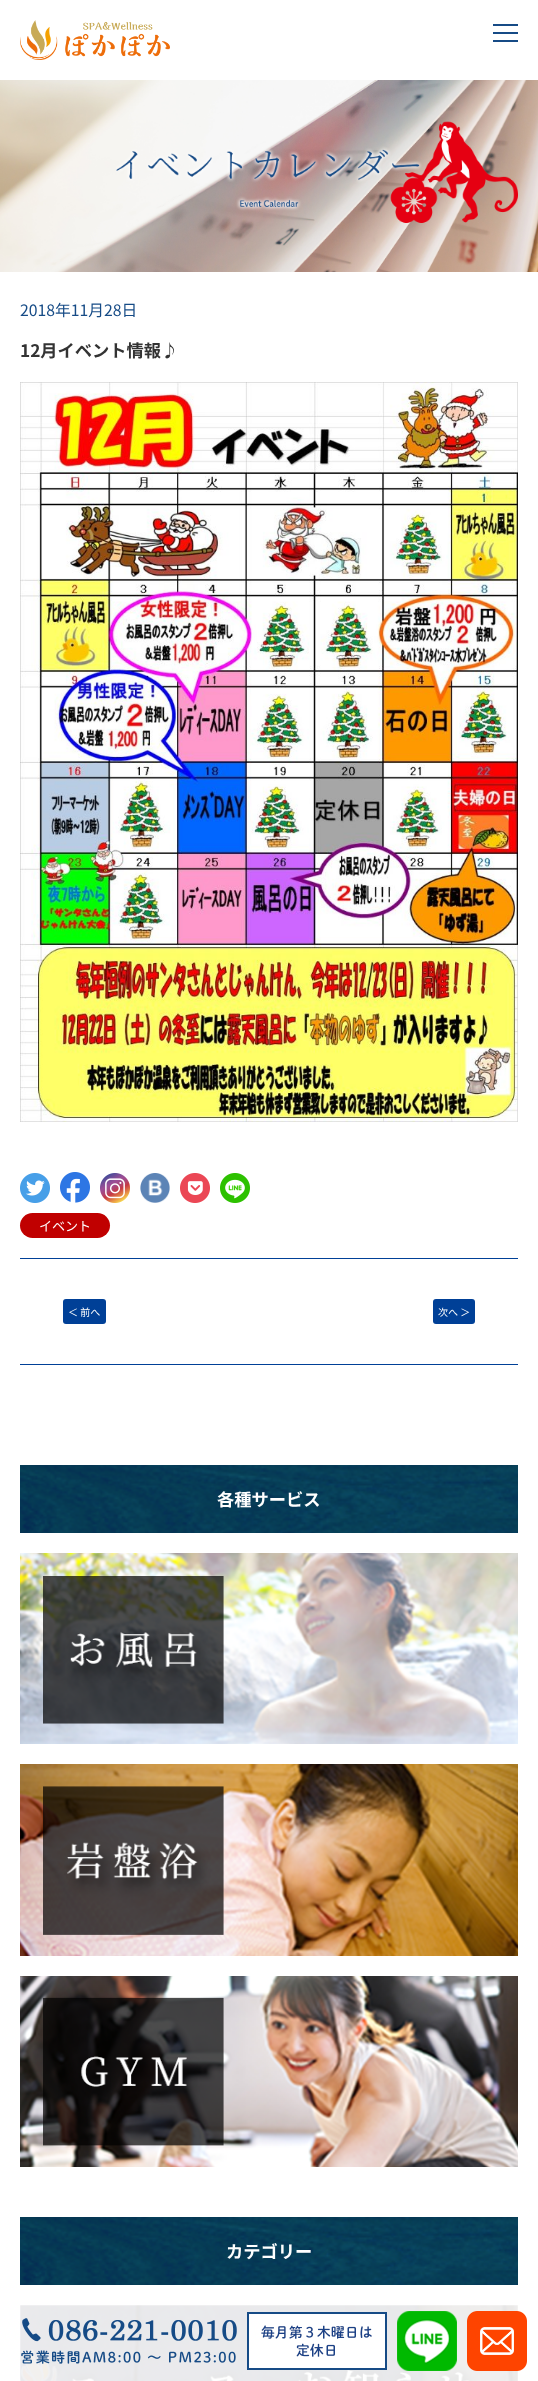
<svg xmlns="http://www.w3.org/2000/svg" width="538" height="2381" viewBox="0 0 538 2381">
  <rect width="100%" height="100%" fill="#ffffff"/>
  <image x="20" y="20" width="150" height="40" href="img1.png"/>
  <image x="20" y="2305" width="498" height="76" href="img19.png"/>
  <image x="21" y="2318" width="216" height="46" href="img2.png"/>
  <image x="247" y="2312" width="140" height="58" href="img3.png"/>
  <image x="397" y="2311" width="60" height="60" href="img4.png"/>
  <image x="467" y="2311" width="60" height="60" href="img5.png"/>
  <rect x="493" y="24" width="25" height="2" fill="#164b86"/>
  <rect x="493" y="32" width="25" height="2" fill="#164b86"/>
  <rect x="493" y="40" width="25" height="2" fill="#164b86"/>
  <image x="0" y="80" width="538" height="192" href="img6.png"/>
  <image x="116" y="121" width="402" height="102" href="img7.png"/>
  <rect x="20" y="1258" width="498" height="1" fill="#004097"/>
  <text x="20" y="316" font-family="Noto Sans JP" font-size="15.75" fill="#164b86">2018年11月28日</text>
  <text x="20" y="357" font-family="Noto Sans JP" font-size="17.25" font-weight="bold" fill="#333333">12月イベント情報♪</text>
  <image x="20" y="382" width="498" height="740" href="img8.png"/>
  <image x="20" y="1173" width="30" height="30" href="img9.png"/>
  <image x="60" y="1172" width="30" height="31" href="img10.png"/>
  <image x="100" y="1173" width="30" height="30" href="img11.png"/>
  <image x="140" y="1173" width="30" height="30" href="img12.png"/>
  <image x="180" y="1173" width="30" height="30" href="img13.png"/>
  <image x="220" y="1173" width="30" height="30" href="img14.png"/>
  <rect x="20" y="1213" width="90" height="25" rx="12.5" fill="#c00000"/>
  <text x="39" y="1231" font-family="Noto Sans JP" font-size="13" fill="#ffffff">イベント</text>
  <rect x="20" y="1364" width="498" height="1" fill="#004097"/>
  <rect x="63" y="1299" width="43" height="25" rx="3" fill="#004097"/>
  <text x="68" y="1316" font-family="Noto Sans JP" font-size="10" fill="#ffffff">＜ 前へ</text>
  <rect x="433" y="1299" width="42" height="25" rx="3" fill="#004097"/>
  <text x="438" y="1316" font-family="Noto Sans JP" font-size="10" fill="#ffffff">次へ ＞</text>
  <image x="20" y="1465" width="498" height="68" href="img15.png"/>
  <text x="217" y="1506" font-family="Noto Sans JP" font-size="17.25" font-weight="bold" fill="#ffffff">各種サービス</text>
  <image x="20" y="1553" width="498" height="191" href="img16.png"/>
  <image x="20" y="1764" width="498" height="192" href="img17.png"/>
  <image x="20" y="1976" width="498" height="191" href="img18.png"/>
  <image x="20" y="2217" width="498" height="68" href="img15.png"/>
  <text x="226" y="2258" font-family="Noto Sans JP" font-size="17.25" font-weight="bold" fill="#ffffff">カテゴリー</text>
</svg>
